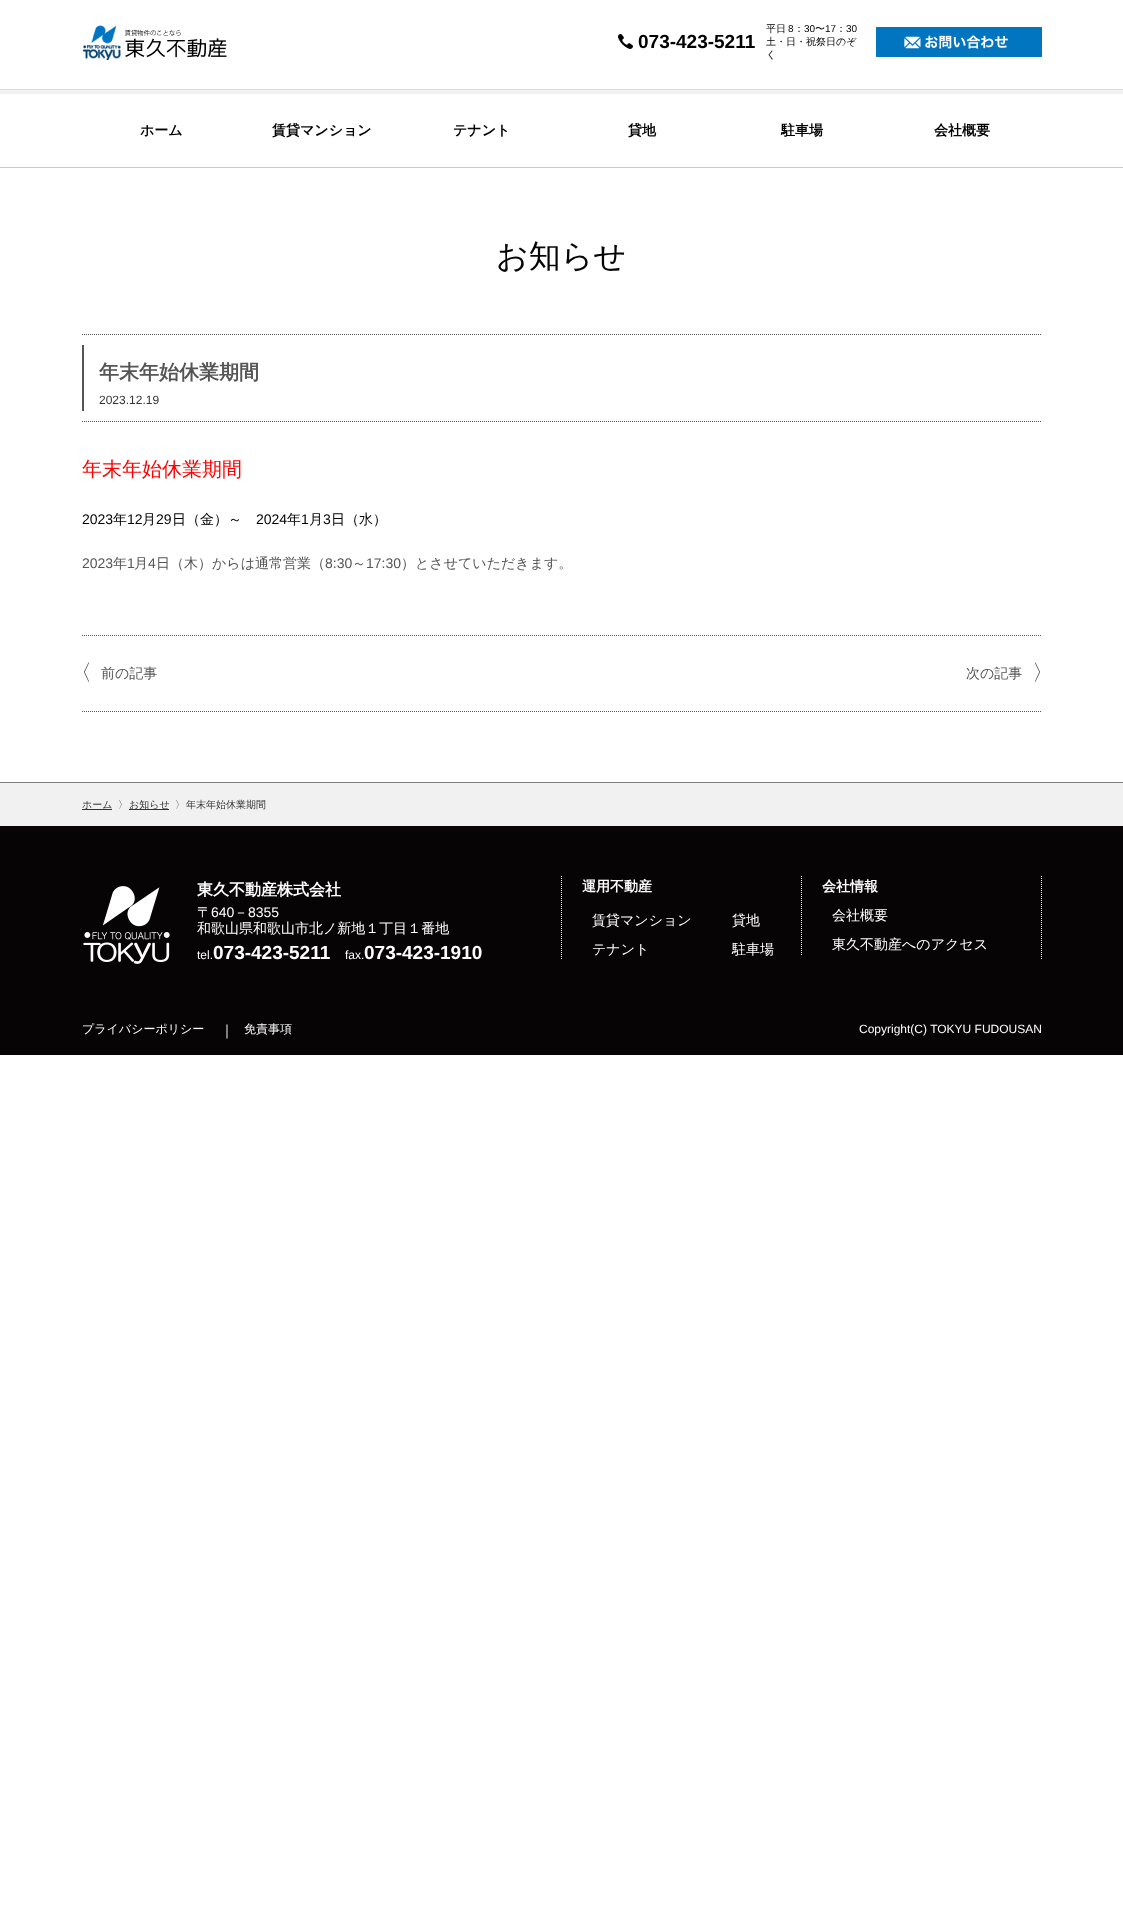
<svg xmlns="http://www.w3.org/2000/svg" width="1123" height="1924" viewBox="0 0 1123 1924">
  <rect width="100%" height="100%" fill="#ffffff"/>
  <image x="82" y="25" width="145" height="35" href="img1.png"/>
  <image x="618" y="34" width="15" height="15" href="img2.png"/>
  <text x="638" y="48" font-family="Liberation Sans" font-size="19" font-weight="bold" fill="#000000">073-423-5211</text>
  <text x="766" y="32" font-family="WenQuanYi Zen Hei" font-size="10" font-weight="500" fill="#000000">平日</text>
  <text x="788" y="32" font-family="Liberation Sans" font-size="10" fill="#000000">8</text>
  <text x="794" y="32" font-family="WenQuanYi Zen Hei" font-size="10" font-weight="500" fill="#000000">：</text>
  <text x="804" y="32" font-family="Liberation Sans" font-size="10" fill="#000000">30</text>
  <text x="815" y="32" font-family="WenQuanYi Zen Hei" font-size="10" font-weight="500" fill="#000000">〜</text>
  <text x="825" y="32" font-family="Liberation Sans" font-size="10" fill="#000000">17</text>
  <text x="836" y="32" font-family="WenQuanYi Zen Hei" font-size="10" font-weight="500" fill="#000000">：</text>
  <text x="846" y="32" font-family="Liberation Sans" font-size="10" fill="#000000">30</text>
  <text x="766" y="45" font-family="WenQuanYi Zen Hei" font-size="10" font-weight="500" fill="#000000">土・日・祝祭日のぞ</text>
  <text x="766" y="58" font-family="WenQuanYi Zen Hei" font-size="10" font-weight="500" fill="#000000">く</text>
  <image x="876" y="27" width="166" height="30" href="img3.png"/>
  <rect x="0" y="89" width="1123" height="1" fill="#dcdcdc"/>
  <rect x="0" y="167" width="1123" height="1" fill="#cacaca"/>
  <rect x="0" y="90" width="1123" height="4" fill="#f1f1f1"/>
  <text x="140" y="135" font-family="WenQuanYi Zen Hei" font-size="14" font-weight="bold" fill="#000000">ホーム</text>
  <text x="272" y="135" font-family="WenQuanYi Zen Hei" font-size="14" font-weight="bold" fill="#000000">賃貸マンション</text>
  <text x="453" y="135" font-family="WenQuanYi Zen Hei" font-size="14" font-weight="bold" fill="#000000">テナント</text>
  <text x="628" y="135" font-family="WenQuanYi Zen Hei" font-size="14" font-weight="bold" fill="#000000">貸地</text>
  <text x="781" y="135" font-family="WenQuanYi Zen Hei" font-size="14" font-weight="bold" fill="#000000">駐車場</text>
  <text x="934" y="135" font-family="WenQuanYi Zen Hei" font-size="14" font-weight="bold" fill="#000000">会社概要</text>
  <text x="496" y="267" font-family="WenQuanYi Zen Hei" font-size="32" font-weight="500" fill="#060404">お知らせ</text>
  <path d="M82 334.5H1042" fill="none" stroke="#555555" stroke-dasharray="1 1"/>
  <path d="M82 421.5H1042" fill="none" stroke="#555555" stroke-dasharray="1 1"/>
  <rect x="82" y="345" width="2" height="66" fill="#555555"/>
  <text x="99" y="379" font-family="WenQuanYi Zen Hei" font-size="20" font-weight="bold" fill="#555555">年末年始休業期間</text>
  <text x="99" y="404" font-family="Liberation Sans" font-size="12" fill="#333333">2023.12.19</text>
  <text x="82" y="476" font-family="WenQuanYi Zen Hei" font-size="20" font-weight="500" fill="#ff0000">年末年始休業期間</text>
  <text x="82" y="524" font-family="Liberation Sans" font-size="14" fill="#000000">2023</text>
  <text x="113" y="524" font-family="WenQuanYi Zen Hei" font-size="14" font-weight="500" fill="#000000">年</text>
  <text x="127" y="524" font-family="Liberation Sans" font-size="14" fill="#000000">12</text>
  <text x="142" y="524" font-family="WenQuanYi Zen Hei" font-size="14" font-weight="500" fill="#000000">月</text>
  <text x="156" y="524" font-family="Liberation Sans" font-size="14" fill="#000000">29</text>
  <text x="172" y="524" font-family="WenQuanYi Zen Hei" font-size="14" font-weight="500" fill="#000000">日（金）～</text>
  <text x="256" y="524" font-family="Liberation Sans" font-size="14" fill="#000000">2024</text>
  <text x="287" y="524" font-family="WenQuanYi Zen Hei" font-size="14" font-weight="500" fill="#000000">年</text>
  <text x="301" y="524" font-family="Liberation Sans" font-size="14" fill="#000000">1</text>
  <text x="309" y="524" font-family="WenQuanYi Zen Hei" font-size="14" font-weight="500" fill="#000000">月</text>
  <text x="323" y="524" font-family="Liberation Sans" font-size="14" fill="#000000">3</text>
  <text x="331" y="524" font-family="WenQuanYi Zen Hei" font-size="14" font-weight="500" fill="#000000">日（水）</text>
  <text x="82" y="568" font-family="Liberation Sans" font-size="14" fill="#555555">2023</text>
  <text x="113" y="568" font-family="WenQuanYi Zen Hei" font-size="14" font-weight="500" fill="#555555">年</text>
  <text x="127" y="568" font-family="Liberation Sans" font-size="14" fill="#555555">1</text>
  <text x="134" y="568" font-family="WenQuanYi Zen Hei" font-size="14" font-weight="500" fill="#555555">月</text>
  <text x="148" y="568" font-family="Liberation Sans" font-size="14" fill="#555555">4</text>
  <text x="156" y="568" font-family="WenQuanYi Zen Hei" font-size="14" font-weight="500" fill="#555555">日（木）からは通常営業（</text>
  <text x="325" y="568" font-family="Liberation Sans" font-size="14" fill="#555555">8:30</text>
  <text x="352" y="568" font-family="WenQuanYi Zen Hei" font-size="14" font-weight="500" fill="#555555">～</text>
  <text x="366" y="568" font-family="Liberation Sans" font-size="14" fill="#555555">17:30</text>
  <text x="401" y="568" font-family="WenQuanYi Zen Hei" font-size="14" font-weight="500" fill="#555555">）とさせていただきます。</text>
  <path d="M82 635.5H1042" fill="none" stroke="#555555" stroke-dasharray="1 1"/>
  <path d="M82 711.5H1042" fill="none" stroke="#555555" stroke-dasharray="1 1"/>
  <text x="70" y="680" font-family="WenQuanYi Zen Hei" font-size="22" font-weight="500" fill="#555555">〈</text>
  <text x="101" y="678" font-family="WenQuanYi Zen Hei" font-size="14" font-weight="500" fill="#555555">前の記事</text>
  <text x="966" y="678" font-family="WenQuanYi Zen Hei" font-size="14" font-weight="500" fill="#555555">次の記事</text>
  <text x="1032" y="680" font-family="WenQuanYi Zen Hei" font-size="22" font-weight="500" fill="#555555">〉</text>
  <rect x="0" y="783" width="1123" height="43" fill="#f1f1f1"/>
  <rect x="0" y="782" width="1123" height="1" fill="#7d7d7d"/>
  <text x="82" y="808" font-family="WenQuanYi Zen Hei" font-size="10" font-weight="500" fill="#333333">ホーム</text>
  <rect x="82" y="809" width="30" height="1" fill="#333333"/>
  <text x="118" y="808" font-family="WenQuanYi Zen Hei" font-size="10" font-weight="500" fill="#333333">〉</text>
  <rect x="129" y="809" width="40" height="1" fill="#333333"/>
  <text x="129" y="808" font-family="WenQuanYi Zen Hei" font-size="10" font-weight="500" fill="#333333">お知らせ</text>
  <text x="175" y="808" font-family="WenQuanYi Zen Hei" font-size="10" font-weight="500" fill="#333333">〉</text>
  <text x="186" y="808" font-family="WenQuanYi Zen Hei" font-size="10" font-weight="500" fill="#333333">年末年始休業期間</text>
  <rect x="0" y="826" width="1123" height="229" fill="#060404"/>
  <image x="83" y="886" width="87" height="78" href="img4.png"/>
  <text x="197" y="895" font-family="WenQuanYi Zen Hei" font-size="16" font-weight="bold" fill="#ffffff">東久不動産株式会社</text>
  <text x="197" y="917" font-family="WenQuanYi Zen Hei" font-size="14" font-weight="500" fill="#ffffff">〒</text>
  <text x="211" y="917" font-family="Liberation Sans" font-size="14" fill="#ffffff">640</text>
  <text x="234" y="917" font-family="WenQuanYi Zen Hei" font-size="14" font-weight="500" fill="#ffffff">－</text>
  <text x="248" y="917" font-family="Liberation Sans" font-size="14" fill="#ffffff">8355</text>
  <text x="197" y="933" font-family="WenQuanYi Zen Hei" font-size="14" font-weight="500" fill="#ffffff">和歌山県和歌山市北ノ新地１丁目１番地</text>
  <text x="197" y="959" font-family="Liberation Sans" font-size="12" fill="#ffffff">tel.</text>
  <text x="213" y="959" font-family="Liberation Sans" font-size="19" font-weight="bold" fill="#ffffff">073-423-5211</text>
  <text x="345" y="959" font-family="Liberation Sans" font-size="12" fill="#ffffff">fax.</text>
  <text x="364" y="959" font-family="Liberation Sans" font-size="19" font-weight="bold" fill="#ffffff">073-423-1910</text>
  <path d="M1041.5 876V960" fill="none" stroke="#ffffff" stroke-dasharray="1 1"/>
  <path d="M561.5 876V960" fill="none" stroke="#ffffff" stroke-dasharray="1 1"/>
  <text x="582" y="891" font-family="WenQuanYi Zen Hei" font-size="14" font-weight="bold" fill="#ffffff">運用不動産</text>
  <text x="592" y="925" font-family="WenQuanYi Zen Hei" font-size="14" font-weight="500" fill="#ffffff">賃貸マンション</text>
  <text x="732" y="925" font-family="WenQuanYi Zen Hei" font-size="14" font-weight="500" fill="#ffffff">貸地</text>
  <text x="592" y="954" font-family="WenQuanYi Zen Hei" font-size="14" font-weight="500" fill="#ffffff">テナント</text>
  <text x="732" y="954" font-family="WenQuanYi Zen Hei" font-size="14" font-weight="500" fill="#ffffff">駐車場</text>
  <path d="M801.5 876V955" fill="none" stroke="#ffffff" stroke-dasharray="1 1"/>
  <text x="822" y="891" font-family="WenQuanYi Zen Hei" font-size="14" font-weight="bold" fill="#ffffff">会社情報</text>
  <text x="832" y="920" font-family="WenQuanYi Zen Hei" font-size="14" font-weight="500" fill="#ffffff">会社概要</text>
  <text x="832" y="949" font-family="WenQuanYi Zen Hei" font-size="14" font-weight="500" fill="#ffffff">東久不動産へのアクセス</text>
  <text x="82" y="1033" font-family="WenQuanYi Zen Hei" font-size="12" font-weight="500" fill="#ffffff">プライバシーポリシー</text>
  <text x="220" y="1035" font-family="WenQuanYi Zen Hei" font-size="14" font-weight="500" fill="#ffffff">｜</text>
  <text x="244" y="1033" font-family="WenQuanYi Zen Hei" font-size="12" font-weight="500" fill="#ffffff">免責事項</text>
  <text x="859" y="1033" font-family="Liberation Sans" font-size="12" fill="#ffffff">Copyright(C) TOKYU FUDOUSAN</text>
</svg>
